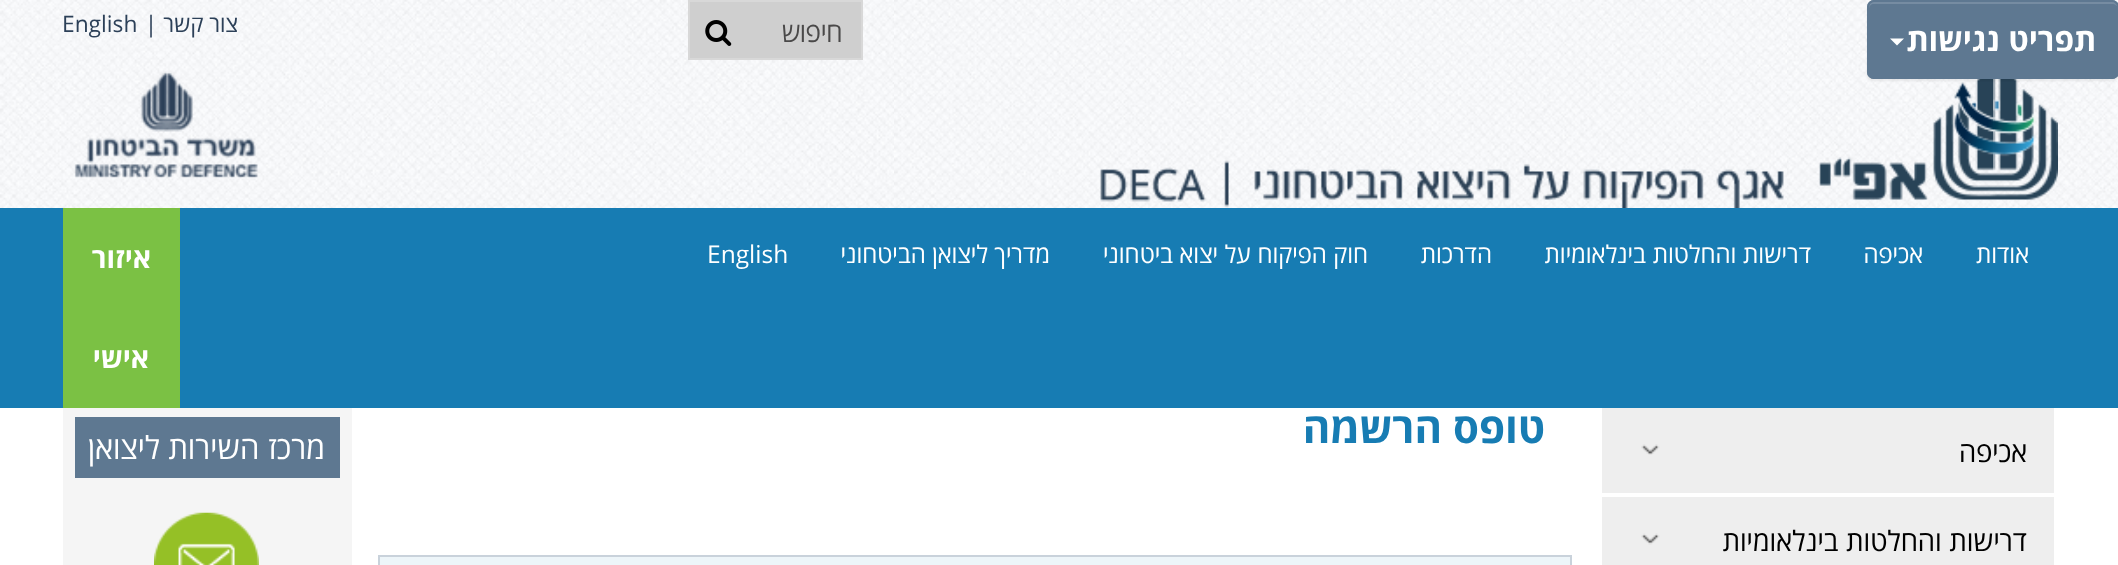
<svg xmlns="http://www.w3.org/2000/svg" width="2118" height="565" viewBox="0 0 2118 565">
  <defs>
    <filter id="blur1" x="-50%" y="-200%" width="200%" height="500%"><feGaussianBlur stdDeviation="1"/></filter>
  </defs>
  <rect width="100%" height="100%" fill="#ffffff"/>
  <image x="0" y="0" width="2118" height="208" href="img1.png"/>
  <rect x="689" y="1" width="173" height="58" fill="#cfcfcf" stroke="#d8d8d8" stroke-width="2"/>
  <text x="842" y="42" font-family="'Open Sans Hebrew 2'" font-size="26" font-weight="bold" direction="rtl" fill="#4a4949">חיפוש</text>
  <image x="705" y="20" width="27" height="26" href="img2.png"/>
  <text x="238" y="32" font-family="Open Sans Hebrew" font-size="22.75" direction="rtl" fill="#2c4058">צור קשר |</text>
  <text x="62" y="32" font-family="Open Sans Hebrew" font-size="22.75" fill="#2c4058">English</text>
  <image x="1100" y="79" width="958" height="129" href="img3.png"/>
  <image x="74" y="71" width="184" height="107" href="img4.png"/>
  <rect x="0" y="208" width="2118" height="200" fill="#177cb3"/>
  <text x="2029" y="263" font-family="Open Sans Hebrew" font-size="24.5" direction="rtl" fill="#ffffff">אודות</text>
  <text x="1923" y="263" font-family="Open Sans Hebrew" font-size="24.5" direction="rtl" fill="#ffffff">אכיפה</text>
  <text x="1811" y="263" font-family="Open Sans Hebrew" font-size="24.5" direction="rtl" fill="#ffffff">דרישות והחלטות בינלאומיות</text>
  <text x="1492" y="263" font-family="Open Sans Hebrew" font-size="24.5" direction="rtl" fill="#ffffff">הדרכות</text>
  <text x="1368" y="263" font-family="Open Sans Hebrew" font-size="24.5" direction="rtl" fill="#ffffff">חוק הפיקוח על יצוא ביטחוני</text>
  <text x="1050" y="263" font-family="Open Sans Hebrew" font-size="24.5" direction="rtl" fill="#ffffff">מדריך ליצואן הביטחוני</text>
  <text x="707" y="263" font-family="Open Sans Hebrew" font-size="24.5" fill="#ffffff">English</text>
  <rect x="63" y="208" width="117" height="200" fill="#7bc144"/>
  <text x="151" y="268" font-family="Open Sans Hebrew" font-size="28" font-weight="bold" direction="rtl" fill="#ffffff">איזור</text>
  <text x="149" y="368" font-family="Open Sans Hebrew" font-size="28" font-weight="bold" direction="rtl" fill="#ffffff">אישי</text>
  <rect x="1867" y="2" width="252" height="79" rx="7" fill="#000000" fill-opacity="0.07" filter="url(#blur1)"/>
  <rect x="1867" y="0" width="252" height="79" rx="7" fill="#5e7891"/>
  <path d="M1874 4H2112C2115 4 2118 6 2118 9C2118 6 2118 3 2114 2H1873C1869 3 1869 6 1869 9C1869 6 1871 4 1874 4Z" fill="#768ca2"/>
  <rect x="1868" y="1" width="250" height="77" rx="6" fill="none" stroke="#5e7891" stroke-width="2"/>
  <text x="2096" y="51" font-family="Open Sans Hebrew" font-size="31.5" font-weight="bold" direction="rtl" fill="#ffffff">תפריט נגישות</text>
  <path d="M1890 38.5H1904L1897 45.5Z" fill="#ffffff"/>
  <text x="1545" y="443" font-family="Open Sans Hebrew" font-size="42" font-weight="bold" direction="rtl" fill="#177cb3">טופס הרשמה</text>
  <rect x="379" y="556" width="1192" height="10" fill="none" stroke="#c9d2db" stroke-width="2"/>
  <rect x="380" y="557" width="1190" height="8" fill="#edf5f9"/>
  <rect x="1602" y="408" width="452" height="85" fill="#eeeeee"/>
  <image x="1641" y="444" width="19" height="11" href="img5.png"/>
  <text x="2027" y="462" font-family="Open Sans Hebrew" font-size="28" direction="rtl" fill="#000000">אכיפה</text>
  <rect x="1602" y="497" width="452" height="68" fill="#eeeeee"/>
  <image x="1641" y="533" width="19" height="12" href="img6.png"/>
  <text x="2027" y="551" font-family="Open Sans Hebrew" font-size="28" direction="rtl" fill="#000000">דרישות והחלטות בינלאומיות</text>
  <rect x="63" y="408" width="289" height="157" fill="#f5f5f5"/>
  <rect x="75" y="417" width="265" height="61" fill="#5e7891"/>
  <text x="325" y="459" font-family="Open Sans Hebrew" font-size="31.5" direction="rtl" fill="#ffffff">מרכז השירות ליצואן</text>
  <image x="154" y="512" width="105" height="53" href="img7.png"/>
</svg>
